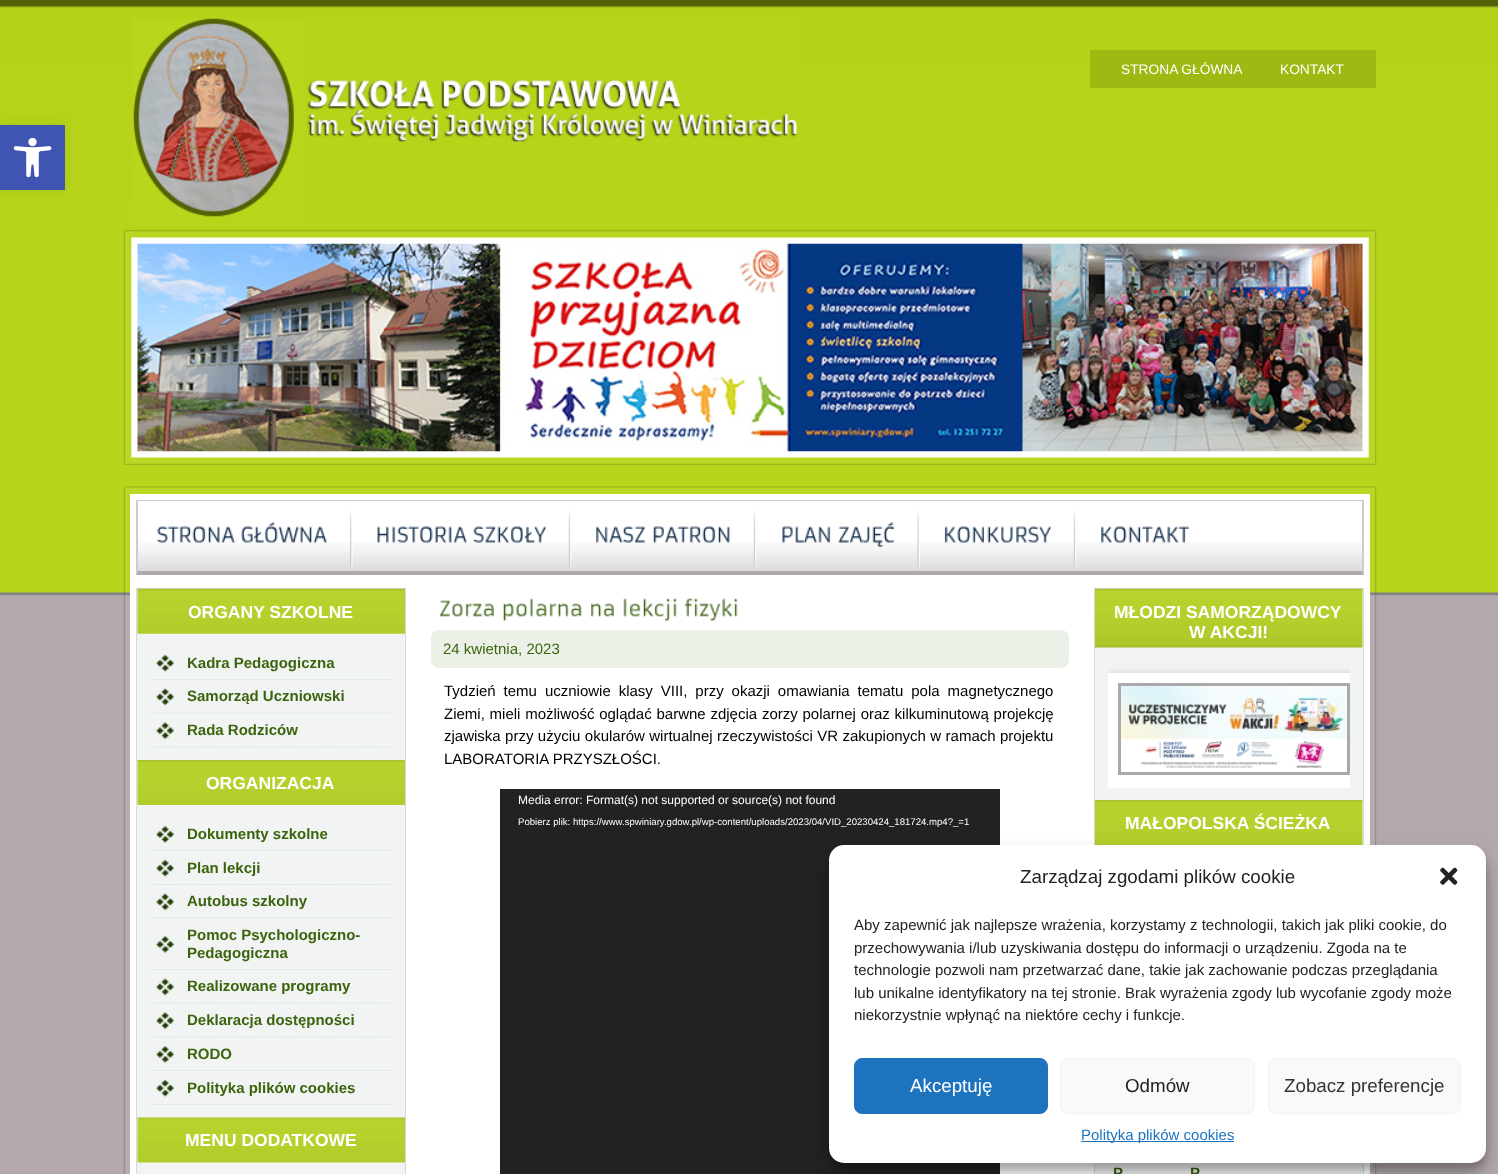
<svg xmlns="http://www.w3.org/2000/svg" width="1498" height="1174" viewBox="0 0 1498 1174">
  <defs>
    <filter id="blur1" x="-50%" y="-200%" width="200%" height="500%"><feGaussianBlur stdDeviation="6"/></filter>
    <clipPath id="clip1"><rect x="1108" y="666" width="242" height="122"/></clipPath>
    <filter id="blur2" x="-50%" y="-200%" width="200%" height="500%"><feGaussianBlur stdDeviation="3"/></filter>
    <filter id="blur3" x="-50%" y="-200%" width="200%" height="500%"><feGaussianBlur stdDeviation="4"/></filter>
    <filter id="blur4" x="-50%" y="-200%" width="200%" height="500%"><feGaussianBlur stdDeviation="12.5"/></filter>
  </defs>
  <rect width="100%" height="100%" fill="#b3a8ac"/>
  <image x="0" y="0" width="1498" height="596" href="img1.png"/>
  <rect x="0" y="125" width="65" height="65" fill="#000000" fill-opacity="0.1" filter="url(#blur1)"/>
  <rect x="0" y="125" width="65" height="65" fill="#4054b2"/>
  <image x="13" y="138" width="39" height="40" href="img2.png"/>
  <image x="133" y="18" width="665" height="199" href="img3.png"/>
  <rect x="1090" y="50" width="286" height="38" fill="#9fb812"/>
  <text x="1121" y="74" font-family="Liberation Sans" font-size="13.75" fill="#ffffff">STRONA GŁÓWNA</text>
  <text x="1280" y="74" font-family="Liberation Sans" font-size="13.75" fill="#ffffff">KONTAKT</text>
  <image x="123" y="225" width="1254" height="240" href="img4.png"/>
  <image x="137" y="243" width="1226" height="209" href="img5.png"/>
  <image x="123" y="493" width="1254" height="681" href="img7.png"/>
  <image x="123" y="483" width="1254" height="11" href="img6.png"/>
  <rect x="130" y="494" width="1240" height="680" fill="#ffffff"/>
  <image x="136" y="542" width="1228" height="33" href="img8.png"/>
  <rect x="136" y="500" width="1228" height="1" fill="#c5ced8"/>
  <path d="M1364 500V575L1362 571V501Z" fill="#c5ced8"/>
  <path d="M1364 575H136L138 571H1362Z" fill="#b3a8ac"/>
  <path d="M136 575V500L138 501V571Z" fill="#c5ced8"/>
  <image x="350" y="510" width="3" height="59" href="img9.png"/>
  <image x="157" y="526" width="79" height="17" href="img10.png"/>
  <image x="241" y="522" width="86" height="21" href="img11.png"/>
  <image x="568" y="510" width="4" height="59" href="img12.png"/>
  <image x="377" y="526" width="90" height="17" href="img13.png"/>
  <image x="473" y="526" width="74" height="17" href="img14.png"/>
  <image x="753" y="510" width="4" height="59" href="img12.png"/>
  <image x="596" y="526" width="50" height="17" href="img15.png"/>
  <image x="653" y="526" width="78" height="17" href="img16.png"/>
  <image x="917" y="510" width="3" height="59" href="img17.png"/>
  <image x="782" y="526" width="49" height="17" href="img18.png"/>
  <image x="838" y="522" width="56" height="26" href="img19.png"/>
  <image x="1073" y="510" width="4" height="59" href="img12.png"/>
  <image x="944" y="526" width="108" height="17" href="img20.png"/>
  <image x="1101" y="526" width="88" height="17" href="img21.png"/>
  <rect x="136.5" y="588.5" width="269" height="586" fill="#f2f3f3" stroke="#d1d8df"/>
  <image x="137" y="588" width="268" height="46" href="img22.png"/>
  <text x="188" y="618" font-family="Liberation Sans" font-size="17.5" font-weight="bold" fill="#ffffff">ORGANY SZKOLNE</text>
  <image x="156" y="654" width="18" height="18" href="img23.png"/>
  <path d="M150 679.5H392.5" fill="none" stroke="#d3dfe5" stroke-width="1.2" stroke-dasharray="1.25 1.25"/>
  <text x="187" y="668" font-family="Liberation Sans" font-size="15" font-weight="bold" fill="#3a640d">Kadra Pedagogiczna</text>
  <image x="156" y="688" width="18" height="18" href="img24.png"/>
  <path d="M150 713H392.5" fill="none" stroke="#d3dfe5" stroke-width="1.2" stroke-dasharray="1.25 1.25"/>
  <text x="187" y="701" font-family="Liberation Sans" font-size="15" font-weight="bold" fill="#3a640d">Samorząd Uczniowski</text>
  <image x="156" y="722" width="18" height="17" href="img25.png"/>
  <path d="M150 747H392.5" fill="none" stroke="#d3dfe5" stroke-width="1.2" stroke-dasharray="1.25 1.25"/>
  <text x="187" y="735" font-family="Liberation Sans" font-size="15" font-weight="bold" fill="#3a640d">Rada Rodziców</text>
  <image x="137" y="760" width="268" height="45" href="img26.png"/>
  <text x="206" y="789" font-family="Liberation Sans" font-size="17.5" font-weight="bold" fill="#ffffff">ORGANIZACJA</text>
  <image x="156" y="826" width="18" height="17" href="img27.png"/>
  <path d="M150 850.5H392.5" fill="none" stroke="#d3dfe5" stroke-width="1.2" stroke-dasharray="1.25 1.25"/>
  <text x="187" y="839" font-family="Liberation Sans" font-size="15" font-weight="bold" fill="#3a640d">Dokumenty szkolne</text>
  <image x="156" y="859" width="18" height="18" href="img23.png"/>
  <path d="M150 884.5H392.5" fill="none" stroke="#d3dfe5" stroke-width="1.2" stroke-dasharray="1.25 1.25"/>
  <text x="187" y="873" font-family="Liberation Sans" font-size="15" font-weight="bold" fill="#3a640d">Plan lekcji</text>
  <image x="156" y="893" width="18" height="18" href="img24.png"/>
  <path d="M150 918H392.5" fill="none" stroke="#d3dfe5" stroke-width="1.2" stroke-dasharray="1.25 1.25"/>
  <text x="187" y="906" font-family="Liberation Sans" font-size="15" font-weight="bold" fill="#3a640d">Autobus szkolny</text>
  <image x="156" y="936" width="18" height="17" href="img27.png"/>
  <path d="M150 969.5H392.5" fill="none" stroke="#d3dfe5" stroke-width="1.2" stroke-dasharray="1.25 1.25"/>
  <text x="187" y="940" font-family="Liberation Sans" font-size="15" font-weight="bold" fill="#3a640d">Pomoc Psychologiczno-</text>
  <text x="187" y="958" font-family="Liberation Sans" font-size="15" font-weight="bold" fill="#3a640d">Pedagogiczna</text>
  <image x="156" y="978" width="18" height="18" href="img24.png"/>
  <path d="M150 1003H392.5" fill="none" stroke="#d3dfe5" stroke-width="1.2" stroke-dasharray="1.25 1.25"/>
  <text x="187" y="991" font-family="Liberation Sans" font-size="15" font-weight="bold" fill="#3a640d">Realizowane programy</text>
  <image x="156" y="1012" width="18" height="17" href="img25.png"/>
  <path d="M150 1037H392.5" fill="none" stroke="#d3dfe5" stroke-width="1.2" stroke-dasharray="1.25 1.25"/>
  <text x="187" y="1025" font-family="Liberation Sans" font-size="15" font-weight="bold" fill="#3a640d">Deklaracja dostępności</text>
  <image x="156" y="1046" width="18" height="17" href="img27.png"/>
  <path d="M150 1070.5H392.5" fill="none" stroke="#d3dfe5" stroke-width="1.2" stroke-dasharray="1.25 1.25"/>
  <text x="187" y="1059" font-family="Liberation Sans" font-size="15" font-weight="bold" fill="#3a640d">RODO</text>
  <image x="156" y="1079" width="18" height="18" href="img23.png"/>
  <path d="M150 1104.5H392.5" fill="none" stroke="#d3dfe5" stroke-width="1.2" stroke-dasharray="1.25 1.25"/>
  <text x="187" y="1093" font-family="Liberation Sans" font-size="15" font-weight="bold" fill="#3a640d">Polityka plików cookies</text>
  <image x="137" y="1117" width="268" height="46" href="img28.png"/>
  <text x="185" y="1146" font-family="Liberation Sans" font-size="17.5" font-weight="bold" fill="#ffffff">MENU DODATKOWE</text>
  <image x="439" y="600" width="55" height="17" href="img29.png"/>
  <image x="503" y="598" width="79" height="24" href="img30.png"/>
  <image x="591" y="603" width="23" height="14" href="img31.png"/>
  <image x="623" y="598" width="54" height="24" href="img32.png"/>
  <image x="684" y="598" width="54" height="24" href="img33.png"/>
  <rect x="431" y="630" width="638" height="38" rx="8" fill="#ecf1e7"/>
  <text x="443" y="654" font-family="Liberation Sans" font-size="15" fill="#3a640d">24 kwietnia, 2023</text>
  <text x="444" y="696" word-spacing="3.75" font-family="Liberation Sans" font-size="15" fill="#000000">Tydzień temu uczniowie klasy VIII, przy okazji omawiania tematu pola magnetycznego</text>
  <text x="444" y="719" word-spacing="0.6" font-family="Liberation Sans" font-size="15" fill="#000000">Ziemi, mieli możliwość oglądać barwne zdjęcia zorzy polarnej oraz kilkuminutową projekcję</text>
  <text x="444" y="741" word-spacing="0.25" font-family="Liberation Sans" font-size="15" fill="#000000">zjawiska przy użyciu okularów wirtualnej rzeczywistości VR zakupionych w ramach projektu</text>
  <text x="444" y="764" font-family="Liberation Sans" font-size="15" fill="#000000">LABORATORIA PRZYSZŁOŚCI.</text>
  <rect x="500" y="789" width="500" height="385" fill="#222222"/>
  <text x="518" y="804" font-family="Liberation Sans" font-size="12" fill="#ffffff">Media error: Format(s) not supported or source(s) not found</text>
  <text x="518" y="825" font-family="Liberation Sans" font-size="9.6" fill="#ffffff">Pobierz plik: https://www.spwiniary.gdow.pl/wp-content/uploads/2023/04/VID_20230424_181724.mp4?_=1</text>
  <rect x="1094.5" y="588.5" width="269" height="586" fill="#f2f3f3" stroke="#d1d8df"/>
  <image x="1095" y="588" width="268" height="60" href="img34.png"/>
  <text x="1114" y="618" font-family="Liberation Sans" font-size="17.5" font-weight="bold" fill="#ffffff">MŁODZI SAMORZĄDOWCY</text>
  <text x="1189" y="638" font-family="Liberation Sans" font-size="17.5" font-weight="bold" fill="#ffffff">W AKCJI!</text>
  <g clip-path="url(#clip1)">
    <rect x="1108" y="673" width="255" height="115" fill="#cccccc" filter="url(#blur2)"/>
  </g>
  <rect x="1108" y="673" width="242" height="115" fill="#ffffff"/>
  <rect x="1119.5" y="684.5" width="229" height="89" fill="none" stroke="#a9a9a9" stroke-width="3"/>
  <image x="1121" y="686" width="226" height="82" href="img35.png"/>
  <image x="1095" y="800" width="268" height="45" href="img36.png"/>
  <text x="1125" y="829" font-family="Liberation Sans" font-size="17.5" font-weight="bold" fill="#ffffff">MAŁOPOLSKA ŚCIEŻKA</text>
  <text x="1113" y="1178" font-family="Liberation Sans" font-size="15" font-weight="bold" fill="#3a640d">P</text>
  <text x="1190" y="1178" font-family="Liberation Sans" font-size="15" font-weight="bold" fill="#3a640d">P</text>
  <rect x="829" y="853" width="657" height="317" rx="15" fill="#000000" fill-opacity="0.23" filter="url(#blur3)"/>
  <rect x="829" y="858" width="657" height="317" rx="15" fill="#000000" fill-opacity="0.19" filter="url(#blur4)"/>
  <rect x="829" y="845" width="657" height="318" rx="15" fill="#ffffff"/>
  <text x="1020" y="883" font-family="Liberation Sans" font-size="18.75" fill="#222222">Zarządzaj zgodami plików cookie</text>
  <image x="1440" y="867" width="18" height="18" href="img37.png"/>
  <text x="854" y="930" font-family="Liberation Sans" font-size="15" fill="#222222">Aby zapewnić jak najlepsze wrażenia, korzystamy z technologii, takich jak pliki cookie, do</text>
  <text x="854" y="953" font-family="Liberation Sans" font-size="15" fill="#222222">przechowywania i/lub uzyskiwania dostępu do informacji o urządzeniu. Zgoda na te</text>
  <text x="854" y="975" font-family="Liberation Sans" font-size="15" fill="#222222">technologie pozwoli nam przetwarzać dane, takie jak zachowanie podczas przeglądania</text>
  <text x="854" y="998" font-family="Liberation Sans" font-size="15" fill="#222222">lub unikalne identyfikatory na tej stronie. Brak wyrażenia zgody lub wycofanie zgody może</text>
  <text x="854" y="1020" font-family="Liberation Sans" font-size="15" fill="#222222">niekorzystnie wpłynąć na niektóre cechy i funkcje.</text>
  <rect x="854.5" y="1058.5" width="193" height="55" rx="7.5" fill="#1e73be" stroke="#1e73be"/>
  <text x="910" y="1092" font-family="Liberation Sans" font-size="18.75" fill="#ffffff">Akceptuję</text>
  <rect x="1060.5" y="1058.5" width="194" height="55" rx="7.5" fill="#f9f9f9" stroke="#f2f2f2"/>
  <text x="1125" y="1092" font-family="Liberation Sans" font-size="18.75" fill="#222222">Odmów</text>
  <rect x="1268.5" y="1058.5" width="192" height="55" rx="7.5" fill="#f9f9f9" stroke="#f2f2f2"/>
  <text x="1284" y="1092" font-family="Liberation Sans" font-size="18.75" fill="#333333">Zobacz preferencje</text>
  <rect x="1081" y="1141" width="153" height="1" fill="#1e73be"/>
  <text x="1081" y="1140" font-family="Liberation Sans" font-size="15" fill="#1e73be">Polityka plików cookies</text>
</svg>
